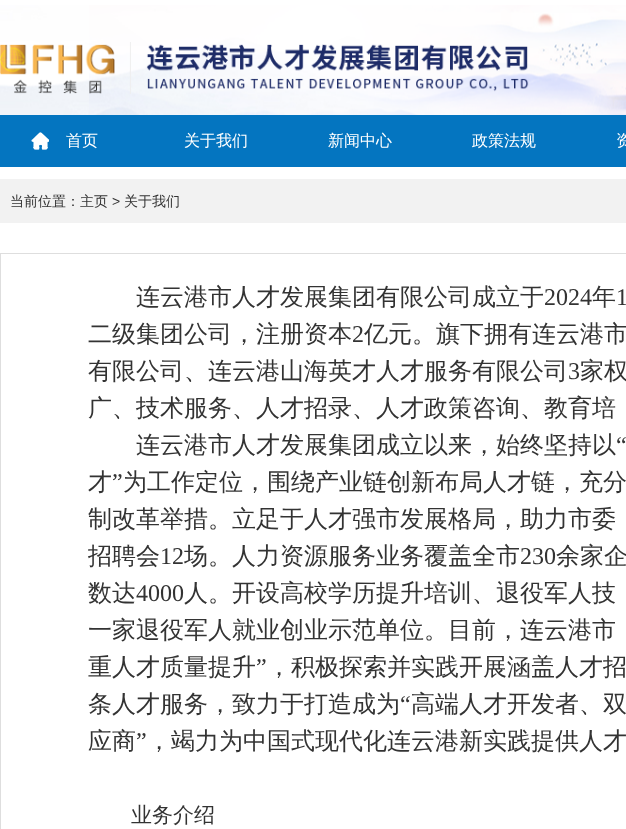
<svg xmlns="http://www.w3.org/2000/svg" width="626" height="829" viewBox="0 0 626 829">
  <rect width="100%" height="100%" fill="#ffffff"/>
  <image x="0" y="5" width="626" height="110" href="img1.png"/>
  <image x="0" y="42" width="529" height="52" href="img2.png"/>
  <rect x="0" y="115" width="626" height="52" fill="#0475c0"/>
  <image x="31" y="132" width="18" height="18" href="img3.png"/>
  <text x="66" y="146" font-family="WenQuanYi Zen Hei" font-size="16" font-weight="500" fill="#ffffff">首页</text>
  <text x="184" y="146" font-family="WenQuanYi Zen Hei" font-size="16" font-weight="500" fill="#ffffff">关于我们</text>
  <text x="328" y="146" font-family="WenQuanYi Zen Hei" font-size="16" font-weight="500" fill="#ffffff">新闻中心</text>
  <text x="472" y="146" font-family="WenQuanYi Zen Hei" font-size="16" font-weight="500" fill="#ffffff">政策法规</text>
  <text x="616" y="146" font-family="WenQuanYi Zen Hei" font-size="16" font-weight="500" fill="#ffffff">资</text>
  <rect x="0" y="179" width="626" height="44" fill="#f2f2f2"/>
  <text x="10" y="206" font-family="WenQuanYi Zen Hei" font-size="14" font-weight="500" fill="#333333">当前位置：主页</text>
  <text x="112" y="206" font-family="Liberation Sans" font-size="14" fill="#333333">&gt;</text>
  <text x="124" y="206" font-family="WenQuanYi Zen Hei" font-size="14" font-weight="500" fill="#333333">关于我们</text>
  <rect x="0.5" y="253.5" width="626" height="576" fill="none" stroke="#dedede"/>
  <text x="136" y="305" font-family="WenQuanYi Zen Hei" font-size="24" font-weight="500" fill="#333333">连云港市人才发展集团有限公司成立于</text>
  <text x="544" y="305" font-family="Liberation Serif" font-size="24" fill="#333333">2024</text>
  <text x="592" y="305" font-family="WenQuanYi Zen Hei" font-size="24" font-weight="500" fill="#333333">年</text>
  <text x="616" y="305" font-family="Liberation Serif" font-size="24" fill="#333333">1</text>
  <text x="88" y="342" font-family="WenQuanYi Zen Hei" font-size="24" font-weight="500" fill="#333333">二级集团公司，注册资本</text>
  <text x="352" y="342" font-family="Liberation Serif" font-size="24" fill="#333333">2</text>
  <text x="364" y="342" font-family="WenQuanYi Zen Hei" font-size="24" font-weight="500" fill="#333333">亿元。旗下拥有连云港市</text>
  <text x="88" y="379" font-family="WenQuanYi Zen Hei" font-size="24" font-weight="500" fill="#333333">有限公司、连云港山海英才人才服务有限公司</text>
  <text x="568" y="379" font-family="Liberation Serif" font-size="24" fill="#333333">3</text>
  <text x="580" y="379" font-family="WenQuanYi Zen Hei" font-size="24" font-weight="500" fill="#333333">家权</text>
  <text x="88" y="416" font-family="WenQuanYi Zen Hei" font-size="24" font-weight="500" fill="#333333">广、技术服务、人才招录、人才政策咨询、教育培</text>
  <text x="136" y="453" font-family="WenQuanYi Zen Hei" font-size="24" font-weight="500" fill="#333333">连云港市人才发展集团成立以来，始终坚持以</text>
  <text x="616" y="453" font-family="Liberation Serif" font-size="24" fill="#333333">“</text>
  <text x="88" y="490" font-family="WenQuanYi Zen Hei" font-size="24" font-weight="500" fill="#333333">才</text>
  <text x="112" y="490" font-family="Liberation Serif" font-size="24" fill="#333333">”</text>
  <text x="123" y="490" font-family="WenQuanYi Zen Hei" font-size="24" font-weight="500" fill="#333333">为工作定位，围绕产业链创新布局人才链，充分</text>
  <text x="88" y="527" font-family="WenQuanYi Zen Hei" font-size="24" font-weight="500" fill="#333333">制改革举措。立足于人才强市发展格局，助力市委</text>
  <text x="88" y="564" font-family="WenQuanYi Zen Hei" font-size="24" font-weight="500" fill="#333333">招聘会</text>
  <text x="160" y="564" font-family="Liberation Serif" font-size="24" fill="#333333">12</text>
  <text x="184" y="564" font-family="WenQuanYi Zen Hei" font-size="24" font-weight="500" fill="#333333">场。人力资源服务业务覆盖全市</text>
  <text x="520" y="564" font-family="Liberation Serif" font-size="24" fill="#333333">230</text>
  <text x="556" y="564" font-family="WenQuanYi Zen Hei" font-size="24" font-weight="500" fill="#333333">余家企</text>
  <text x="88" y="601" font-family="WenQuanYi Zen Hei" font-size="24" font-weight="500" fill="#333333">数达</text>
  <text x="136" y="601" font-family="Liberation Serif" font-size="24" fill="#333333">4000</text>
  <text x="184" y="601" font-family="WenQuanYi Zen Hei" font-size="24" font-weight="500" fill="#333333">人。开设高校学历提升培训、退役军人技</text>
  <text x="88" y="638" font-family="WenQuanYi Zen Hei" font-size="24" font-weight="500" fill="#333333">一家退役军人就业创业示范单位。目前，连云港市</text>
  <text x="88" y="675" font-family="WenQuanYi Zen Hei" font-size="24" font-weight="500" fill="#333333">重人才质量提升</text>
  <text x="256" y="675" font-family="Liberation Serif" font-size="24" fill="#333333">”</text>
  <text x="267" y="675" font-family="WenQuanYi Zen Hei" font-size="24" font-weight="500" fill="#333333">，积极探索并实践开展涵盖人才招</text>
  <text x="88" y="712" font-family="WenQuanYi Zen Hei" font-size="24" font-weight="500" fill="#333333">条人才服务，致力于打造成为</text>
  <text x="400" y="712" font-family="Liberation Serif" font-size="24" fill="#333333">“</text>
  <text x="411" y="712" font-family="WenQuanYi Zen Hei" font-size="24" font-weight="500" fill="#333333">高端人才开发者、双</text>
  <text x="88" y="749" font-family="WenQuanYi Zen Hei" font-size="24" font-weight="500" fill="#333333">应商</text>
  <text x="136" y="749" font-family="Liberation Serif" font-size="24" fill="#333333">”</text>
  <text x="147" y="749" font-family="WenQuanYi Zen Hei" font-size="24" font-weight="500" fill="#333333">，竭力为中国式现代化连云港新实践提供人才</text>
  <text x="131" y="822" font-family="WenQuanYi Zen Hei" font-size="21" font-weight="500" fill="#333333">业务介绍</text>
</svg>
